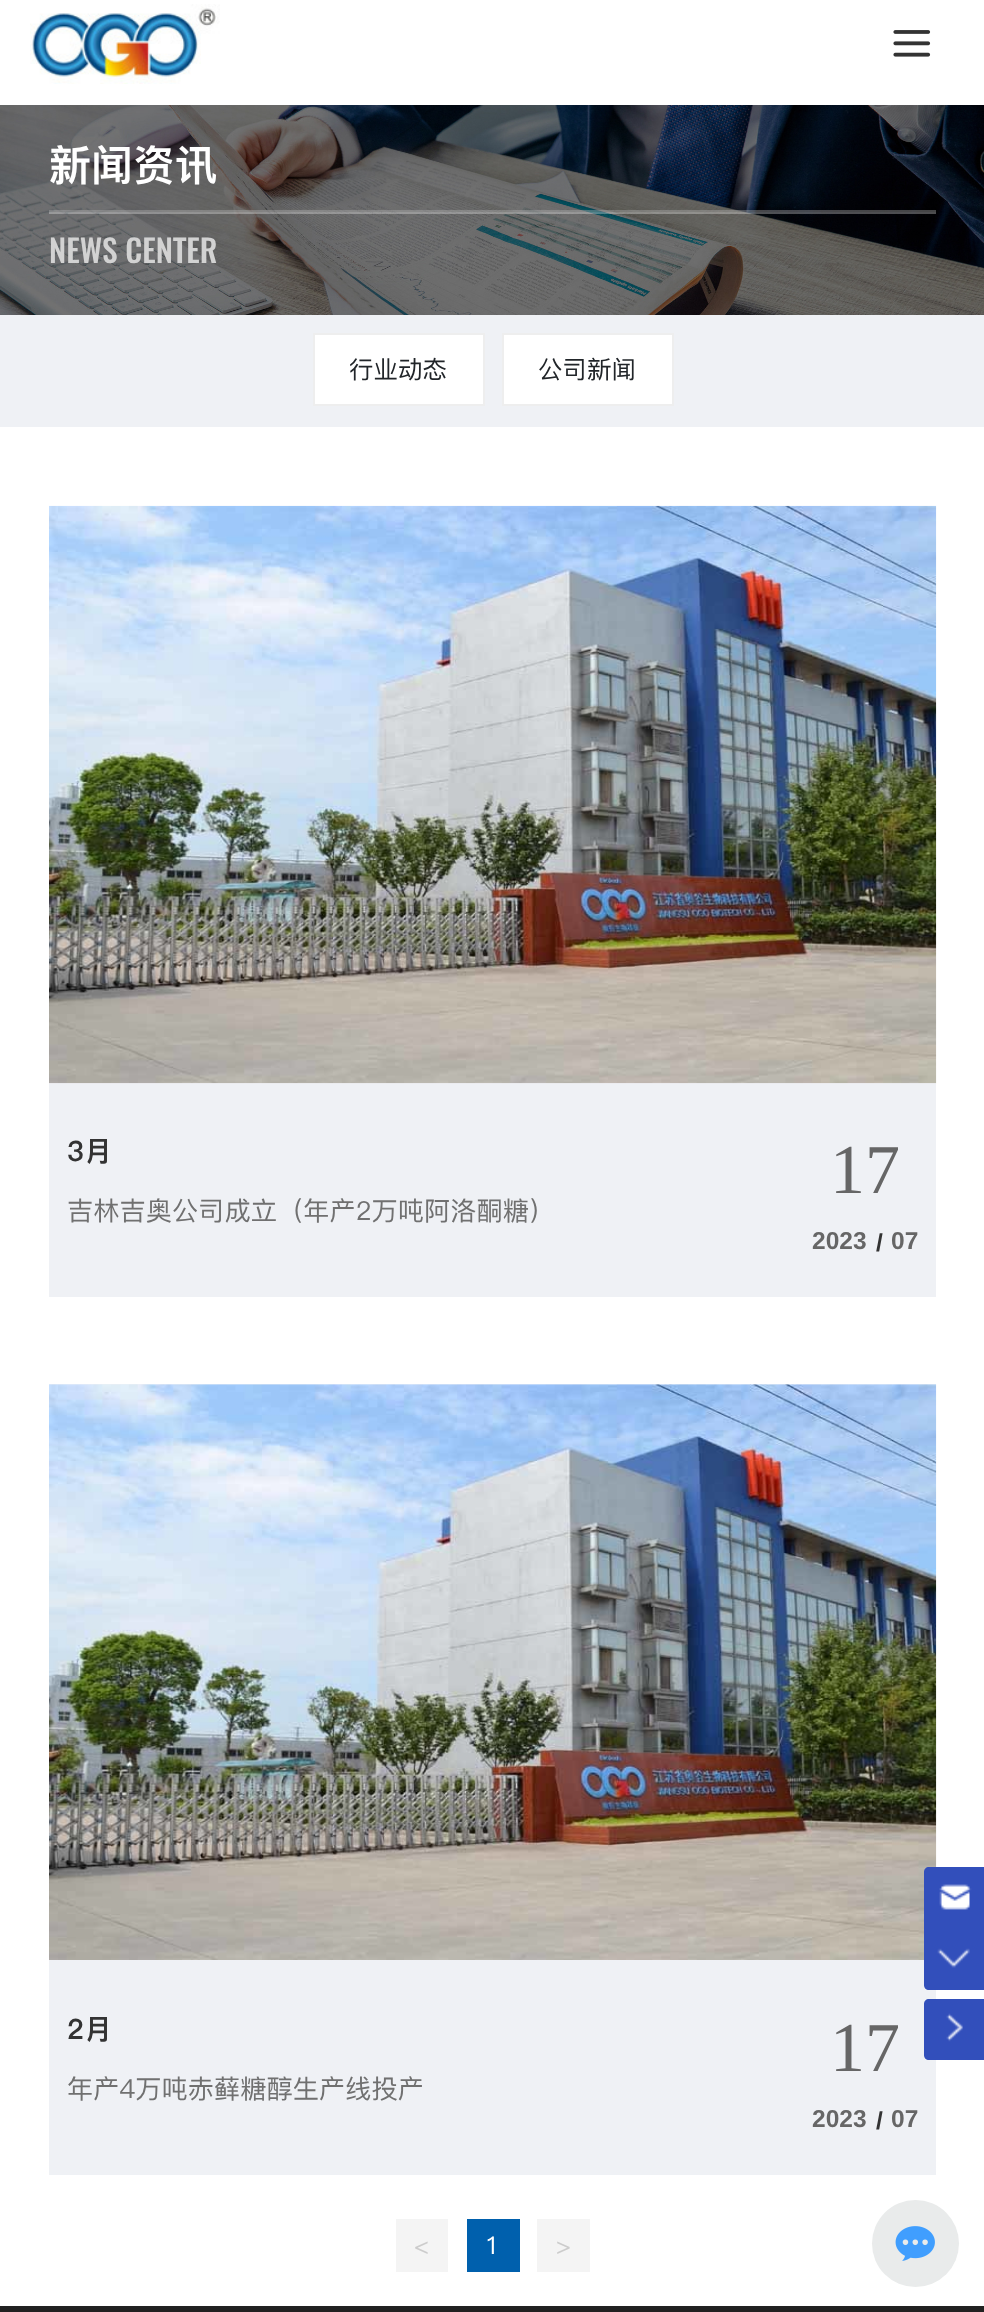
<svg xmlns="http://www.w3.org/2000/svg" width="984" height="2312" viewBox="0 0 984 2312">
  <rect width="100%" height="100%" fill="#ffffff"/>
  <image x="30" y="4" width="190" height="80" href="img1.png"/>
  <image x="893" y="30" width="38" height="27" href="img2.png"/>
  <image x="0" y="105" width="984" height="210" href="img3.png"/>
  <text x="49" y="180" font-family="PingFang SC" font-size="42" font-weight="900" fill="#ffffff">新闻资讯</text>
  <rect x="49" y="210" width="887" height="4" fill="#ffffff" fill-opacity="0.3"/>
  <rect x="49" y="210" width="887" height="2" fill="#000000" fill-opacity="0.1"/>
  <text x="49" y="263" font-family="Oswald" font-size="31.5" font-weight="500" fill="#d2d2d2">NEWS CENTER</text>
  <rect x="0" y="315" width="984" height="112" fill="#eff1f5"/>
  <rect x="314" y="334" width="170" height="71" fill="#ffffff" stroke="#eeeeee" stroke-width="2"/>
  <text x="349" y="378" font-family="PingFang SC" font-size="24.5" font-weight="500" fill="#212529">行业动态</text>
  <rect x="503" y="334" width="170" height="71" fill="#ffffff" stroke="#eeeeee" stroke-width="2"/>
  <text x="538" y="378" font-family="PingFang SC" font-size="24.5" font-weight="500" fill="#212529">公司新闻</text>
  <rect x="49" y="1083" width="887" height="214" fill="#eff1f5"/>
  <image x="49" y="505" width="888" height="579" href="img4.png"/>
  <text x="67" y="1161" font-family="PingFang SC" font-size="28" font-weight="900" fill="#333333">3月</text>
  <text x="67" y="1220" font-family="PingFang SC" font-size="26.25" font-weight="500" fill="#707070">吉林吉奥公司成立（年产2万吨阿洛酮糖）</text>
  <text x="830" y="1193" font-family="Liberation Serif" font-size="70" fill="#666666">17</text>
  <text x="812" y="1249" font-family="Liberation Sans" font-size="24.5" font-weight="bold" fill="#666666">2023</text>
  <text x="876" y="1251" font-family="Liberation Sans" font-size="24.5" font-weight="bold" fill="#333333">/</text>
  <text x="891" y="1249" font-family="Liberation Sans" font-size="24.5" font-weight="bold" fill="#666666">07</text>
  <rect x="49" y="1384" width="887" height="791" fill="#eff1f5"/>
  <image x="49" y="1384" width="888" height="576" href="img5.png"/>
  <text x="67" y="2039" font-family="PingFang SC" font-size="28" font-weight="900" fill="#333333">2月</text>
  <text x="67" y="2098" font-family="PingFang SC" font-size="26.25" font-weight="500" fill="#707070">年产4万吨赤藓糖醇生产线投产</text>
  <text x="830" y="2071" font-family="Liberation Serif" font-size="70" fill="#666666">17</text>
  <text x="812" y="2127" font-family="Liberation Sans" font-size="24.5" font-weight="bold" fill="#666666">2023</text>
  <text x="876" y="2129" font-family="Liberation Sans" font-size="24.5" font-weight="bold" fill="#333333">/</text>
  <text x="891" y="2127" font-family="Liberation Sans" font-size="24.5" font-weight="bold" fill="#666666">07</text>
  <rect x="396" y="2219" width="52" height="53" fill="#f4f4f4"/>
  <text x="414" y="2254" font-family="PingFang SC" font-size="24.5" font-weight="500" fill="#cccccc">&lt;</text>
  <rect x="467" y="2219" width="53" height="53" fill="#0060ad"/>
  <text x="485" y="2254" font-family="PingFang SC" font-size="24.5" font-weight="500" fill="#ffffff">1</text>
  <rect x="537" y="2219" width="53" height="53" fill="#f4f4f4"/>
  <text x="556" y="2254" font-family="PingFang SC" font-size="24.5" font-weight="500" fill="#cccccc">&gt;</text>
  <path d="M929 1867H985V1990H929C926 1990 924 1988 924 1985V1872C924 1869 926 1867 929 1867Z" fill="#324fbb"/>
  <image x="939" y="1884" width="33" height="26" href="img6.png"/>
  <image x="937" y="1948" width="33" height="20" href="img7.png"/>
  <path d="M929 1999H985V2060H929C926 2060 924 2058 924 2055V2004C924 2001 926 1999 929 1999Z" fill="#324fbb"/>
  <image x="946" y="2013" width="17" height="29" href="img8.png"/>
  <rect x="0" y="2306" width="984" height="6" fill="#212121"/>
  <circle cx="915.5" cy="2243.5" r="43.5" fill="#e9ebeb"/>
  <image x="895" y="2226" width="40" height="35" href="img9.png"/>
</svg>
